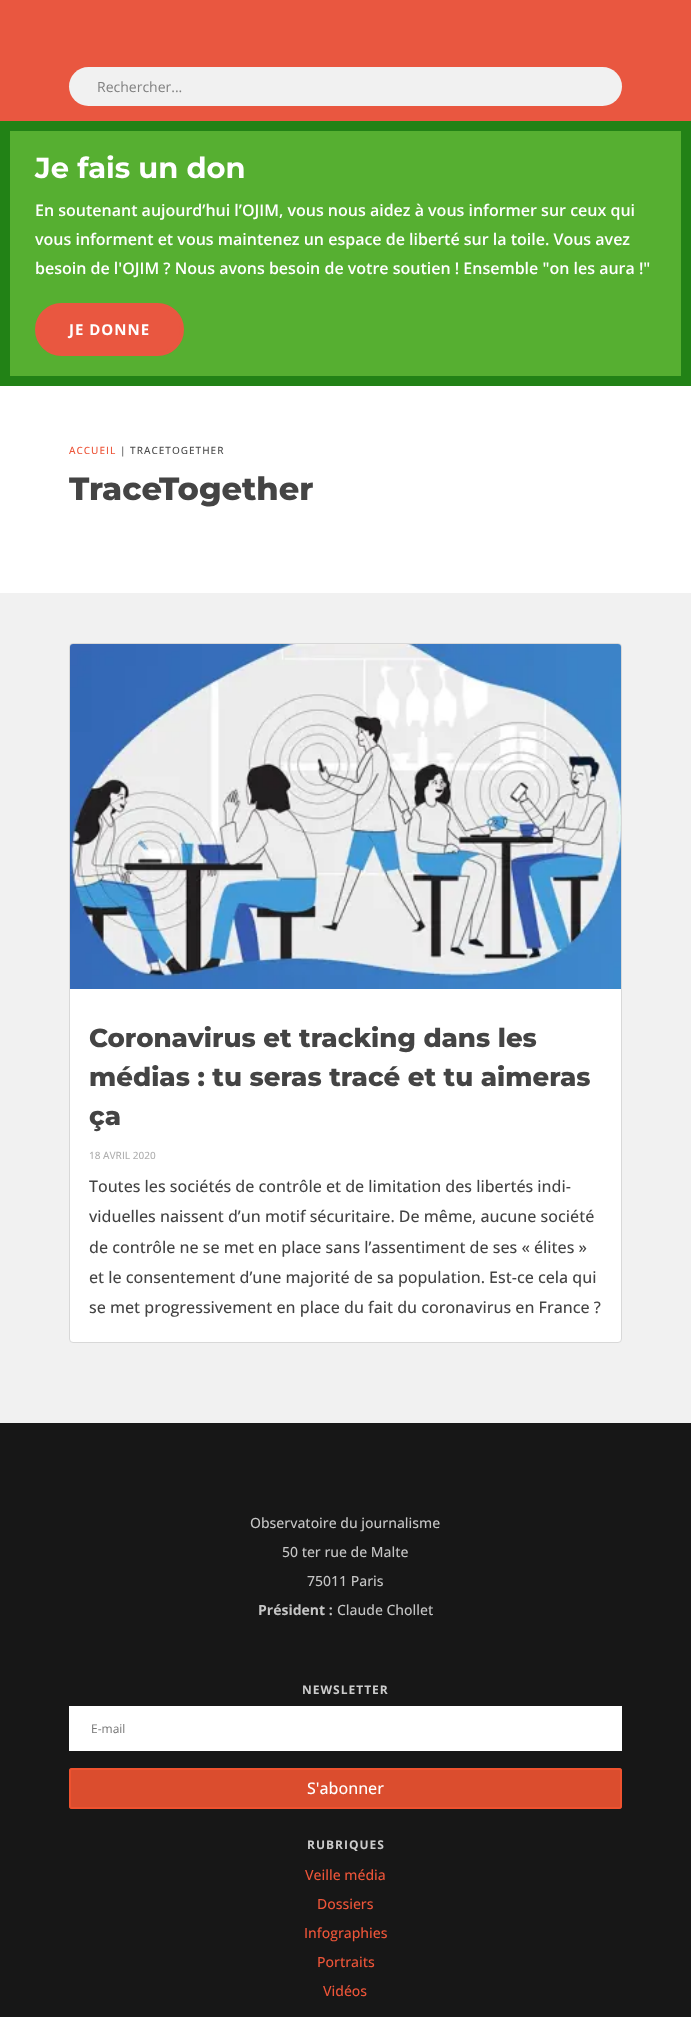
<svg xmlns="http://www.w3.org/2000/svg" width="691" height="2017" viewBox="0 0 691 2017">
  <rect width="100%" height="100%" fill="#ffffff"/>
  <rect x="0" y="0" width="691" height="121" fill="#e95740"/>
  <rect x="69" y="67" width="553" height="39" rx="19.5" fill="#f1f1f1"/>
  <text x="97" y="92" font-family="Open Sans" font-size="14" fill="#818181">Rechercher...</text>
  <rect x="0" y="121" width="691" height="265" fill="#228216"/>
  <rect x="10" y="131" width="671" height="245" fill="#56af31"/>
  <text x="35" y="178" font-family="Montserrat" font-size="29" font-weight="bold" fill="#ffffff">Je fais un don</text>
  <text x="35" y="216" font-family="Open Sans" font-size="16" font-weight="600" fill="#ffffff">En soutenant aujourd’hui l’OJIM, vous nous aidez à vous informer sur ceux qui</text>
  <text x="35" y="245" font-family="Open Sans" font-size="16" font-weight="600" fill="#ffffff">vous informent et vous maintenez un espace de liberté sur la toile. Vous avez</text>
  <text x="35" y="274" font-family="Open Sans" font-size="16" font-weight="600" fill="#ffffff">besoin de l'OJIM ? Nous avons besoin de votre soutien ! Ensemble "on les aura !"</text>
  <rect x="37" y="305" width="145" height="49" rx="24.5" fill="#e95740" stroke="#e95740" stroke-width="4"/>
  <text x="69" y="335" font-family="Open Sans" font-size="15" font-weight="bold" letter-spacing="1" fill="#ffffff">JE DONNE</text>
  <text x="69" y="454" font-family="Open Sans" font-size="10" font-weight="500" letter-spacing="1" fill="#ed5539">ACCUEIL</text>
  <text x="120" y="454" font-family="Open Sans" font-size="10" font-weight="500" letter-spacing="1" fill="#4c4c4c">| TRACETOGETHER</text>
  <text x="69" y="500" font-family="Montserrat" font-size="32" font-weight="800" fill="#444444">TraceTogether</text>
  <rect x="0" y="593" width="691" height="830" fill="#f1f1f1"/>
  <rect x="69.5" y="643.5" width="552" height="699" rx="3.5" fill="#ffffff" stroke="#d8d8d8"/>
  <image x="70" y="644" width="551" height="345" href="img1.png"/>
  <text x="89" y="1047" font-family="Montserrat" font-size="26" font-weight="800" fill="#444444">Coronavirus et tracking dans les</text>
  <text x="89" y="1086" font-family="Montserrat" font-size="26" font-weight="800" fill="#444444">médias : tu seras tracé et tu aimeras</text>
  <text x="89" y="1125" font-family="Montserrat" font-size="26" font-weight="800" fill="#444444">ça</text>
  <text x="89" y="1159" font-family="Open Sans" font-size="10" font-weight="500" fill="#afafaf">18 AVRIL 2020</text>
  <text x="89" y="1192" font-family="Open Sans" font-size="16" font-weight="500" fill="#444444">Toutes les sociétés de contrôle et de limitation des libertés indi-</text>
  <text x="89" y="1222" font-family="Open Sans" font-size="16" font-weight="500" fill="#444444">viduelles naissent d’un motif sécuritaire. De même, aucune société</text>
  <text x="89" y="1253" font-family="Open Sans" font-size="16" font-weight="500" fill="#444444">de contrôle ne se met en place sans l’assentiment de ses « élites »</text>
  <text x="89" y="1283" font-family="Open Sans" font-size="16" font-weight="500" fill="#444444">et le consentement d’une majorité de sa population. Est-ce cela qui</text>
  <text x="89" y="1313" font-family="Open Sans" font-size="16" font-weight="500" fill="#444444">se met progressivement en place du fait du coronavirus en France ?</text>
  <rect x="0" y="1423" width="691" height="594" fill="#171717"/>
  <text x="250" y="1528" font-family="Open Sans" font-size="14" font-weight="500" fill="#c5c5c5">Observatoire du journalisme</text>
  <text x="282" y="1557" font-family="Open Sans" font-size="14" font-weight="500" fill="#c5c5c5">50 ter rue de Malte</text>
  <text x="307" y="1586" font-family="Open Sans" font-size="14" font-weight="500" fill="#c5c5c5">75011 Paris</text>
  <text x="258" y="1615" font-family="Open Sans" font-size="14" font-weight="bold" fill="#c5c5c5">Président :</text>
  <text x="337" y="1615" font-family="Open Sans" font-size="14" font-weight="500" fill="#c5c5c5">Claude Chollet</text>
  <text x="302" y="1694" font-family="Open Sans" font-size="12" font-weight="bold" letter-spacing="1" fill="#cccccc">NEWSLETTER</text>
  <rect x="69" y="1706" width="553" height="45" fill="#ffffff"/>
  <text x="91" y="1733" font-family="Open Sans" font-size="12" fill="#757575">E-mail</text>
  <rect x="69" y="1768" width="553" height="41" rx="3" fill="#db4d2e"/>
  <rect x="70" y="1769" width="551" height="39" rx="2" fill="none" stroke="#f15330" stroke-opacity="0.9" stroke-width="2"/>
  <text x="307" y="1794" font-family="Open Sans" font-size="16" font-weight="500" fill="#ffffff">S'abonner</text>
  <text x="307" y="1849" font-family="Open Sans" font-size="12" font-weight="bold" letter-spacing="1" fill="#cccccc">RUBRIQUES</text>
  <text x="305" y="1880" font-family="Open Sans" font-size="14" font-weight="500" fill="#ed5539">Veille média</text>
  <text x="317" y="1909" font-family="Open Sans" font-size="14" font-weight="500" fill="#ed5539">Dossiers</text>
  <text x="304" y="1938" font-family="Open Sans" font-size="14" font-weight="500" fill="#ed5539">Infographies</text>
  <text x="317" y="1967" font-family="Open Sans" font-size="14" font-weight="500" fill="#ed5539">Portraits</text>
  <text x="323" y="1996" font-family="Open Sans" font-size="14" font-weight="500" fill="#ed5539">Vidéos</text>
</svg>
